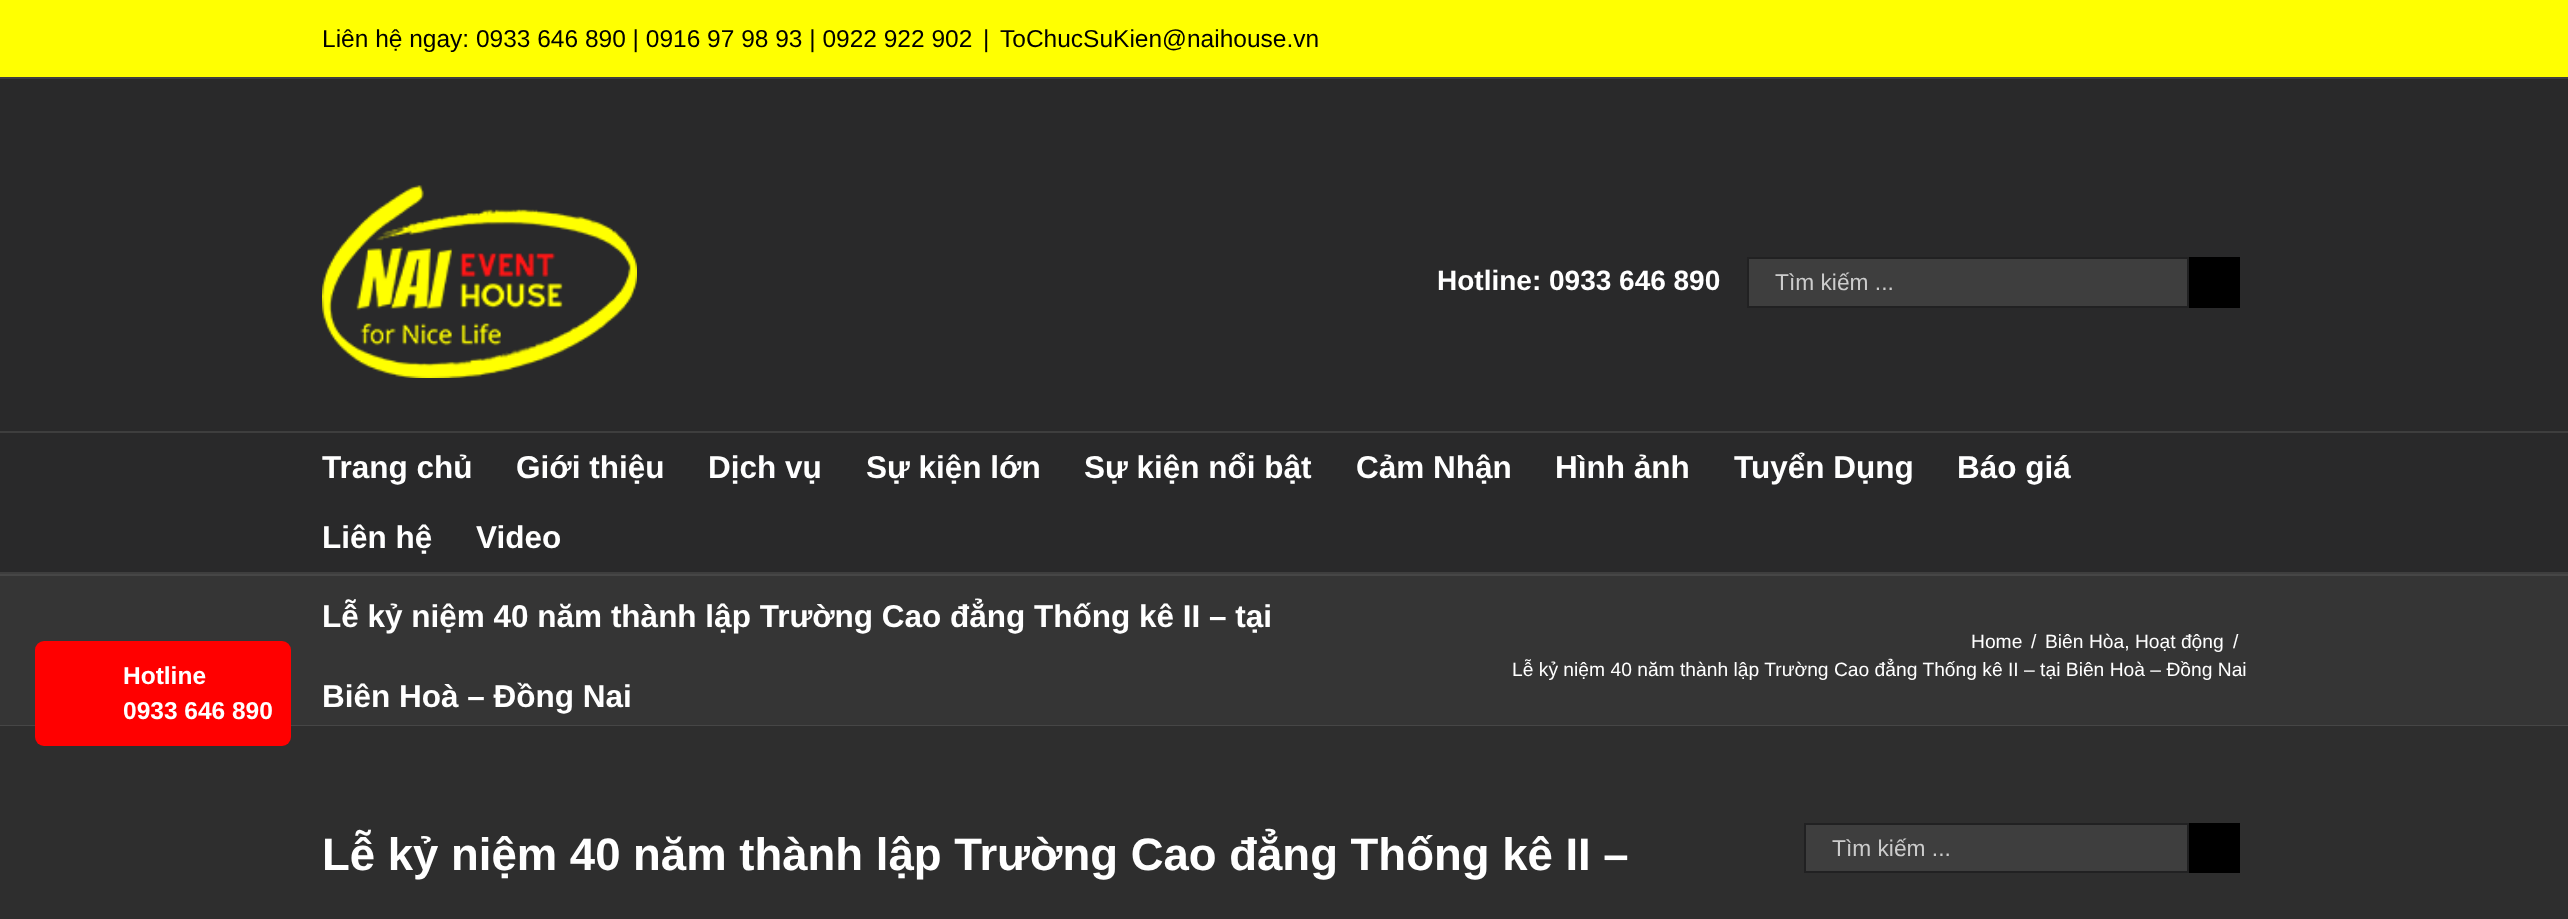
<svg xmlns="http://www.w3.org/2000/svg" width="2568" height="919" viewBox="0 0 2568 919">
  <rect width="100%" height="100%" fill="#353535"/>
  <rect x="0" y="0" width="2568" height="77" fill="#ffff01"/>
  <rect x="0" y="77" width="2568" height="2" fill="#3e3e3e"/>
  <text x="322" y="47" font-family="Liberation Sans" font-size="24.5" fill="#000000">Liên hệ ngay: 0933 646 890 | 0916 97 98 93 | 0922 922 902</text>
  <text x="983" y="47" font-family="Liberation Sans" font-size="24.5" fill="#000000">|</text>
  <text x="1000" y="47" font-family="Liberation Sans" font-size="24.5" fill="#000000">ToChucSuKien@naihouse.vn</text>
  <rect x="0" y="79" width="2568" height="352" fill="#29292a"/>
  <rect x="0" y="431" width="2568" height="2" fill="#3e3e3e"/>
  <image x="322" y="185" width="315" height="193" href="img1.png"/>
  <text x="1437" y="290" font-family="Liberation Sans" font-size="28" font-weight="bold" fill="#ffffff">Hotline: 0933 646 890</text>
  <rect x="1748" y="258" width="440" height="49" fill="#3e3e3e" stroke="#212122" stroke-width="2"/>
  <text x="1775" y="290" font-family="Liberation Sans" font-size="22.75" fill="#cccccc">Tìm kiếm ...</text>
  <rect x="2189" y="257" width="51" height="51" fill="#000000"/>
  <rect x="0" y="433" width="2568" height="139" fill="#29292a"/>
  <rect x="0" y="572" width="2568" height="2" fill="#3e3e3e"/>
  <text x="322" y="478" font-family="Liberation Sans" font-size="31.5" font-weight="bold" fill="#ffffff">Trang chủ</text>
  <text x="516" y="478" font-family="Liberation Sans" font-size="31.5" font-weight="bold" fill="#ffffff">Giới thiệu</text>
  <text x="708" y="478" font-family="Liberation Sans" font-size="31.5" font-weight="bold" fill="#ffffff">Dịch vụ</text>
  <text x="866" y="478" font-family="Liberation Sans" font-size="31.5" font-weight="bold" fill="#ffffff">Sự kiện lớn</text>
  <text x="1084" y="478" font-family="Liberation Sans" font-size="31.5" font-weight="bold" fill="#ffffff">Sự kiện nổi bật</text>
  <text x="1356" y="478" font-family="Liberation Sans" font-size="31.5" font-weight="bold" fill="#ffffff">Cảm Nhận</text>
  <text x="1555" y="478" font-family="Liberation Sans" font-size="31.5" font-weight="bold" fill="#ffffff">Hình ảnh</text>
  <text x="1734" y="478" font-family="Liberation Sans" font-size="31.5" font-weight="bold" fill="#ffffff">Tuyển Dụng</text>
  <text x="1957" y="478" font-family="Liberation Sans" font-size="31.5" font-weight="bold" fill="#ffffff">Báo giá</text>
  <text x="322" y="548" font-family="Liberation Sans" font-size="31.5" font-weight="bold" fill="#ffffff">Liên hệ</text>
  <text x="476" y="548" font-family="Liberation Sans" font-size="31.5" font-weight="bold" fill="#ffffff">Video</text>
  <rect x="0" y="725" width="2568" height="1" fill="#464646"/>
  <rect x="0" y="726" width="2568" height="193" fill="#2e2e2e"/>
  <rect x="35" y="641" width="256" height="105" rx="9" fill="#ff0000"/>
  <text x="123" y="684" font-family="Liberation Sans" font-size="24.5" font-weight="bold" fill="#ffffff">Hotline</text>
  <text x="123" y="719" font-family="Liberation Sans" font-size="24.5" font-weight="bold" fill="#ffffff">0933 646 890</text>
  <rect x="0" y="574" width="2568" height="2" fill="#464646"/>
  <text x="322" y="627" font-family="Liberation Sans" font-size="31.5" font-weight="bold" fill="#ffffff">Lễ kỷ niệm 40 năm thành lập Trường Cao đẳng Thống kê II – tại</text>
  <text x="322" y="707" font-family="Liberation Sans" font-size="31.5" font-weight="bold" fill="#ffffff">Biên Hoà – Đồng Nai</text>
  <text x="1971" y="648" font-family="Liberation Sans" font-size="19.25" fill="#ffffff">Home</text>
  <text x="2031" y="648" font-family="Liberation Sans" font-size="19.25" fill="#ffffff">/</text>
  <text x="2045" y="648" font-family="Liberation Sans" font-size="19.25" fill="#ffffff">Biên Hòa, Hoạt động</text>
  <text x="2233" y="648" font-family="Liberation Sans" font-size="19.25" fill="#ffffff">/</text>
  <text x="1512" y="676" font-family="Liberation Sans" font-size="19.25" fill="#ffffff">Lễ kỷ niệm 40 năm thành lập Trường Cao đẳng Thống kê II – tại Biên Hoà – Đồng Nai</text>
  <text x="322" y="870" font-family="Liberation Sans" font-size="45.5" font-weight="bold" fill="#ffffff">Lễ kỷ niệm 40 năm thành lập Trường Cao đẳng Thống kê II –</text>
  <rect x="1805" y="824" width="383" height="48" fill="#3e3e3e" stroke="#212122" stroke-width="2"/>
  <text x="1832" y="856" font-family="Liberation Sans" font-size="22.75" fill="#cccccc">Tìm kiếm ...</text>
  <rect x="2189" y="823" width="51" height="50" fill="#000000"/>
</svg>
